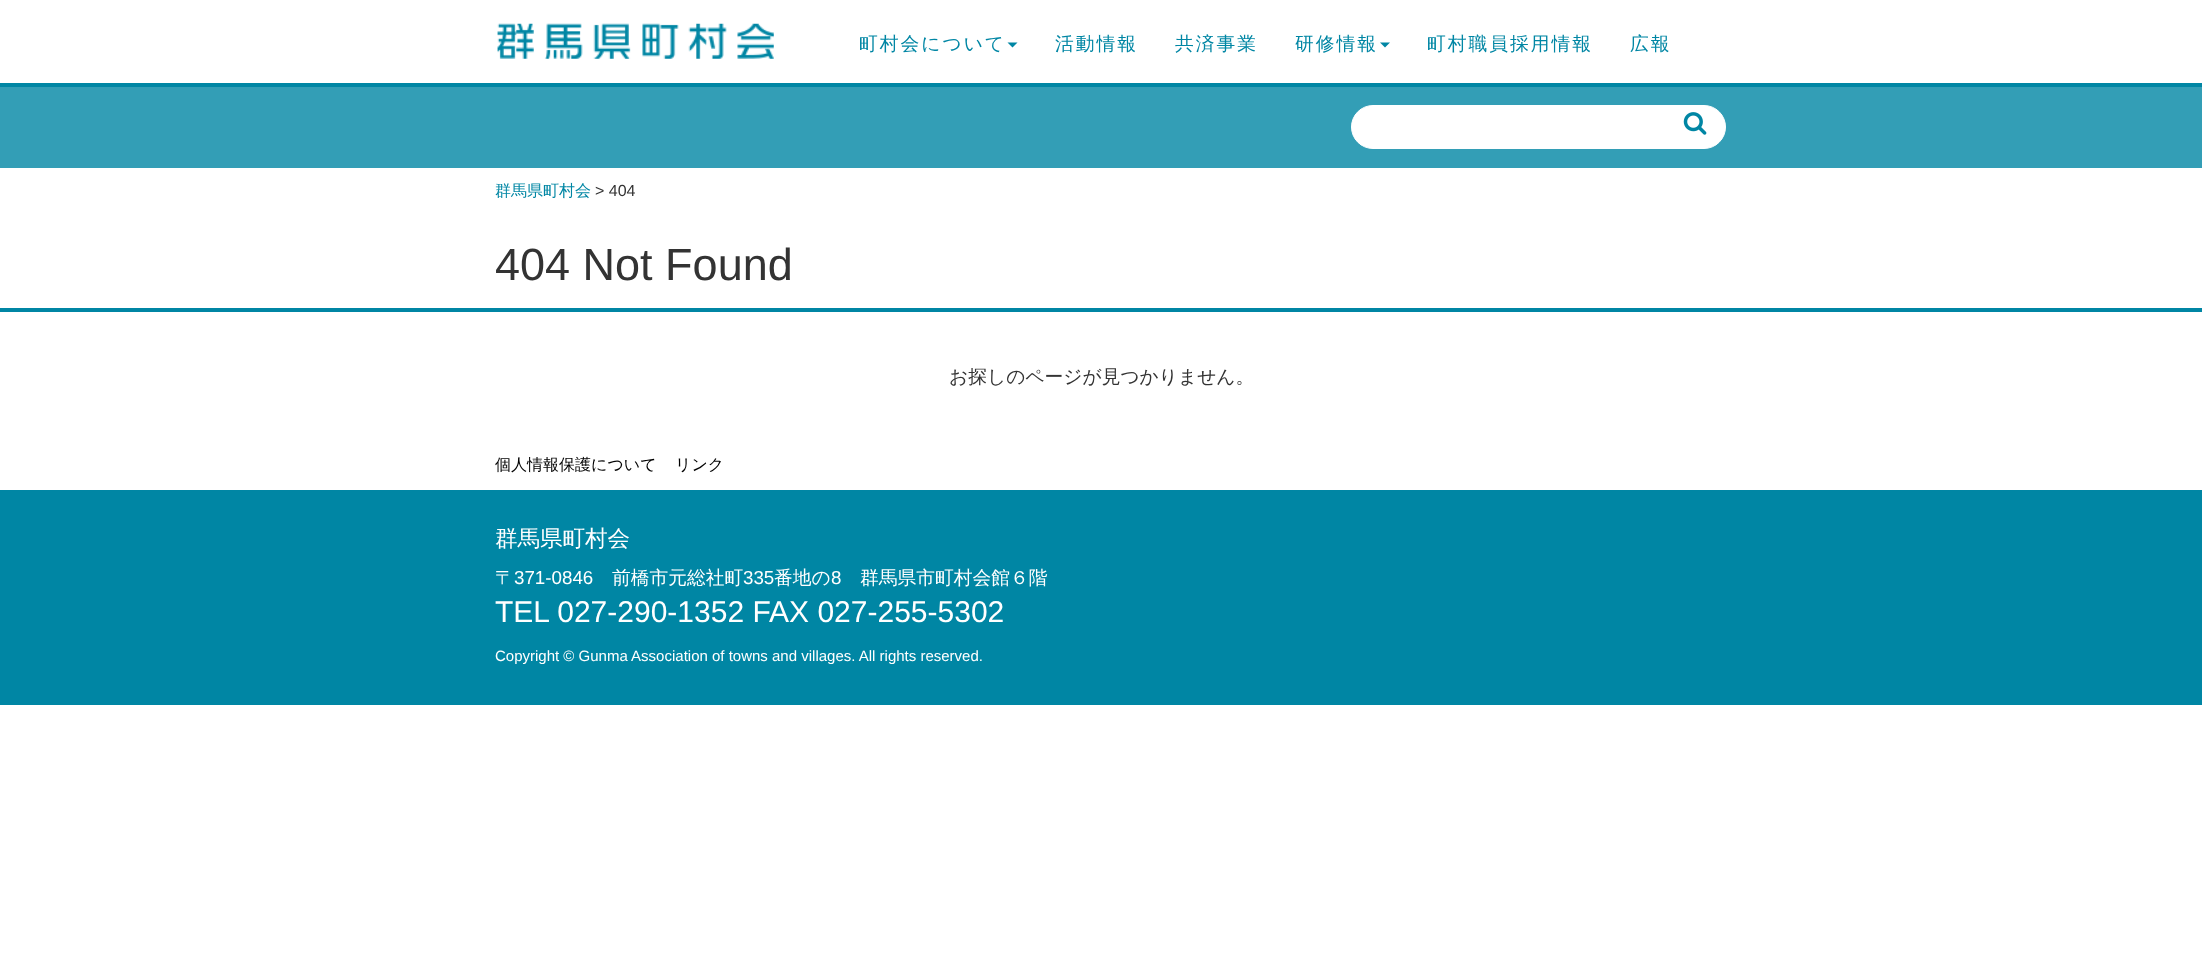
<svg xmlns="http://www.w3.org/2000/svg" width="2202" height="975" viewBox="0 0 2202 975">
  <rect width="100%" height="100%" fill="#ffffff"/>
  <rect x="0" y="83" width="2202" height="4" fill="#0086a4"/>
  <image x="497" y="23" width="277" height="36" href="img1.png"/>
  <text x="859" y="50" font-family="WenQuanYi Zen Hei" font-size="18.75" font-weight="500" letter-spacing="2" fill="#0086a4">町村会について</text>
  <path d="M1007.5 42.5H1017.5L1012.5 47.5Z" fill="#0086a4"/>
  <text x="1055" y="50" font-family="WenQuanYi Zen Hei" font-size="18.75" font-weight="500" letter-spacing="2" fill="#0086a4">活動情報</text>
  <text x="1175" y="50" font-family="WenQuanYi Zen Hei" font-size="18.75" font-weight="500" letter-spacing="2" fill="#0086a4">共済事業</text>
  <text x="1295" y="50" font-family="WenQuanYi Zen Hei" font-size="18.75" font-weight="500" letter-spacing="2" fill="#0086a4">研修情報</text>
  <path d="M1380 42.5H1390L1385 47.5Z" fill="#0086a4"/>
  <text x="1427" y="50" font-family="WenQuanYi Zen Hei" font-size="18.75" font-weight="500" letter-spacing="2" fill="#0086a4">町村職員採用情報</text>
  <text x="1630" y="50" font-family="WenQuanYi Zen Hei" font-size="18.75" font-weight="500" letter-spacing="2" fill="#0086a4">広報</text>
  <rect x="0" y="87" width="2202" height="81" fill="#339eb6"/>
  <rect x="1351.5" y="105.5" width="374" height="43" rx="21.5" fill="#ffffff" stroke="#ffffff"/>
  <image x="1683" y="112" width="24" height="23" href="img2.png"/>
  <rect x="0" y="308" width="2202" height="4" fill="#0086a4"/>
  <text x="495" y="196" font-family="WenQuanYi Zen Hei" font-size="16" font-weight="500" fill="#0086a4">群馬県町村会</text>
  <text x="595" y="196" font-family="Liberation Sans" font-size="16" fill="#333333">&gt; 404</text>
  <text x="495" y="280" font-family="Liberation Sans" font-size="45" fill="#333333">404 Not Found</text>
  <text x="949" y="383" font-family="WenQuanYi Zen Hei" font-size="18.75" font-weight="500" fill="#333333">お探しのページが見つかりません。</text>
  <text x="495" y="470" font-family="WenQuanYi Zen Hei" font-size="16" font-weight="500" fill="#000000">個人情報保護について</text>
  <text x="675" y="470" font-family="WenQuanYi Zen Hei" font-size="16" font-weight="500" fill="#000000">リンク</text>
  <rect x="0" y="490" width="2202" height="215" fill="#0086a4"/>
  <text x="495" y="546" font-family="WenQuanYi Zen Hei" font-size="22.5" font-weight="500" fill="#ffffff">群馬県町村会</text>
  <text x="495" y="584" font-family="WenQuanYi Zen Hei" font-size="18.75" font-weight="500" fill="#ffffff">〒</text>
  <text x="514" y="584" font-family="Liberation Sans" font-size="18.75" fill="#ffffff">371-0846</text>
  <text x="612" y="584" font-family="WenQuanYi Zen Hei" font-size="18.75" font-weight="500" fill="#ffffff">前橋市元総社町</text>
  <text x="743" y="584" font-family="Liberation Sans" font-size="18.75" fill="#ffffff">335</text>
  <text x="774" y="584" font-family="WenQuanYi Zen Hei" font-size="18.75" font-weight="500" fill="#ffffff">番地の</text>
  <text x="831" y="584" font-family="Liberation Sans" font-size="18.75" fill="#ffffff">8</text>
  <text x="860" y="584" font-family="WenQuanYi Zen Hei" font-size="18.75" font-weight="500" fill="#ffffff">群馬県市町村会館６階</text>
  <text x="495" y="622" font-family="Liberation Sans" font-size="30" fill="#ffffff">TEL 027-290-1352 FAX 027-255-5302</text>
  <text x="495" y="661" font-family="Liberation Sans" font-size="15" fill="#ffffff">Copyright © Gunma Association of towns and villages. All rights reserved.</text>
</svg>
